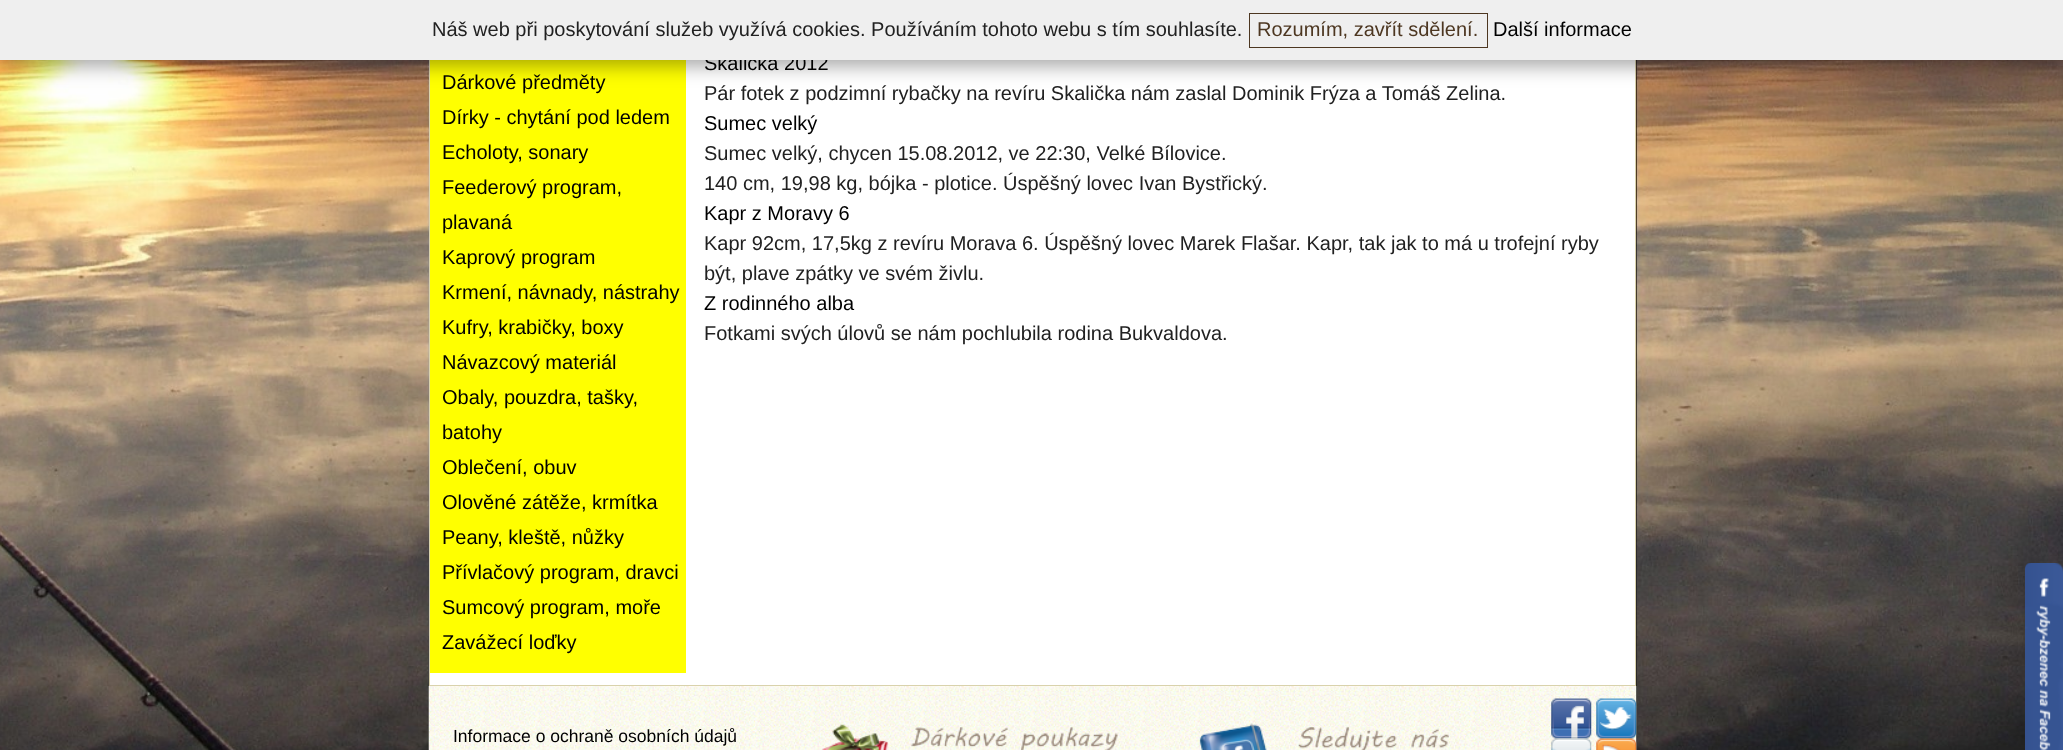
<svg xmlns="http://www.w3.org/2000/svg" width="2063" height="750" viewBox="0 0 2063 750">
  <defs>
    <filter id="blur1" x="-50%" y="-200%" width="200%" height="500%"><feGaussianBlur stdDeviation="9.5"/></filter>
  </defs>
  <rect width="100%" height="100%" fill="#ffffff"/>
  <image x="0" y="60" width="2063" height="690" href="img1.png"/>
  <rect x="430" y="60" width="1205" height="625" fill="#ffffff"/>
  <rect x="1635" y="60" width="1" height="626" fill="#d9d2ac"/>
  <rect x="429" y="685" width="1207" height="1" fill="#d9d2ac"/>
  <rect x="429" y="60" width="1" height="626" fill="#d9d2ac"/>
  <rect x="430" y="60" width="256" height="613" fill="#ffff00"/>
  <rect x="0" y="6" width="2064" height="60" fill="#000000" fill-opacity="0.35" filter="url(#blur1)"/>
  <text x="704" y="70" font-family="Liberation Sans" font-size="20" fill="#000000">Skalička 2012</text>
  <rect x="0" y="0" width="2063" height="60" fill="#efefef"/>
  <text x="432" y="36" font-family="Liberation Sans" font-size="20" fill="#212121">Náš web při poskytování služeb využívá cookies. Používáním tohoto webu s tím souhlasíte.</text>
  <rect x="1249.5" y="13.5" width="238" height="34" fill="none" stroke="#4d3721"/>
  <text x="1257" y="36" font-family="Liberation Sans" font-size="20" fill="#4d3721">Rozumím, zavřít sdělení.</text>
  <text x="1493" y="36" font-family="Liberation Sans" font-size="20" fill="#000000">Další informace</text>
  <text x="442" y="89" font-family="Liberation Sans" font-size="20" fill="#000000">Dárkové předměty</text>
  <text x="442" y="124" font-family="Liberation Sans" font-size="20" fill="#000000">Dírky - chytání pod ledem</text>
  <text x="442" y="159" font-family="Liberation Sans" font-size="20" fill="#000000">Echoloty, sonary</text>
  <text x="442" y="194" font-family="Liberation Sans" font-size="20" fill="#000000">Feederový program,</text>
  <text x="442" y="229" font-family="Liberation Sans" font-size="20" fill="#000000">plavaná</text>
  <text x="442" y="264" font-family="Liberation Sans" font-size="20" fill="#000000">Kaprový program</text>
  <text x="442" y="299" font-family="Liberation Sans" font-size="20" fill="#000000">Krmení, návnady, nástrahy</text>
  <text x="442" y="334" font-family="Liberation Sans" font-size="20" fill="#000000">Kufry, krabičky, boxy</text>
  <text x="442" y="369" font-family="Liberation Sans" font-size="20" fill="#000000">Návazcový materiál</text>
  <text x="442" y="404" font-family="Liberation Sans" font-size="20" fill="#000000">Obaly, pouzdra, tašky,</text>
  <text x="442" y="439" font-family="Liberation Sans" font-size="20" fill="#000000">batohy</text>
  <text x="442" y="474" font-family="Liberation Sans" font-size="20" fill="#000000">Oblečení, obuv</text>
  <text x="442" y="509" font-family="Liberation Sans" font-size="20" fill="#000000">Olověné zátěže, krmítka</text>
  <text x="442" y="544" font-family="Liberation Sans" font-size="20" fill="#000000">Peany, kleště, nůžky</text>
  <text x="442" y="579" font-family="Liberation Sans" font-size="20" fill="#000000">Přívlačový program, dravci</text>
  <text x="442" y="614" font-family="Liberation Sans" font-size="20" fill="#000000">Sumcový program, moře</text>
  <text x="442" y="649" font-family="Liberation Sans" font-size="20" fill="#000000">Zavážecí loďky</text>
  <text x="704" y="100" font-family="Liberation Sans" font-size="20" fill="#212121">Pár fotek z podzimní rybačky na revíru Skalička nám zaslal Dominik Frýza a Tomáš Zelina.</text>
  <text x="704" y="130" font-family="Liberation Sans" font-size="20" fill="#000000">Sumec velký</text>
  <text x="704" y="160" font-family="Liberation Sans" font-size="20" fill="#212121">Sumec velký, chycen 15.08.2012, ve 22:30, Velké Bílovice.</text>
  <text x="704" y="190" font-family="Liberation Sans" font-size="20" fill="#212121">140 cm, 19,98 kg, bójka - plotice. Úspěšný lovec Ivan Bystřický.</text>
  <text x="704" y="220" font-family="Liberation Sans" font-size="20" fill="#000000">Kapr z Moravy 6</text>
  <text x="704" y="250" font-family="Liberation Sans" font-size="20" fill="#212121">Kapr 92cm, 17,5kg z revíru Morava 6. Úspěšný lovec Marek Flašar. Kapr, tak jak to má u trofejní ryby</text>
  <text x="704" y="280" font-family="Liberation Sans" font-size="20" fill="#212121">být, plave zpátky ve svém živlu.</text>
  <text x="704" y="310" font-family="Liberation Sans" font-size="20" fill="#000000">Z rodinného alba</text>
  <text x="704" y="340" font-family="Liberation Sans" font-size="20" fill="#212121">Fotkami svých úlovů se nám pochlubila rodina Bukvaldova.</text>
  <image x="428" y="686" width="1209" height="64" href="img2.png"/>
  <text x="453" y="742" font-family="Liberation Sans" font-size="17.5" fill="#000000">Informace o ochraně osobních údajů</text>
  <image x="821" y="724" width="68" height="26" href="img3.png"/>
  <image x="911" y="727" width="207" height="23" href="img4.png"/>
  <image x="1199" y="723" width="68" height="27" href="img5.png"/>
  <image x="1298" y="727" width="151" height="23" href="img6.png"/>
  <image x="1551" y="698" width="41" height="41" href="img7.png"/>
  <image x="1596" y="698" width="41" height="41" href="img8.png"/>
  <image x="1551" y="738" width="41" height="12" href="img9.png"/>
  <image x="1596" y="738" width="41" height="12" href="img10.png"/>
  <image x="2025" y="563" width="38" height="187" href="img11.png"/>
</svg>
